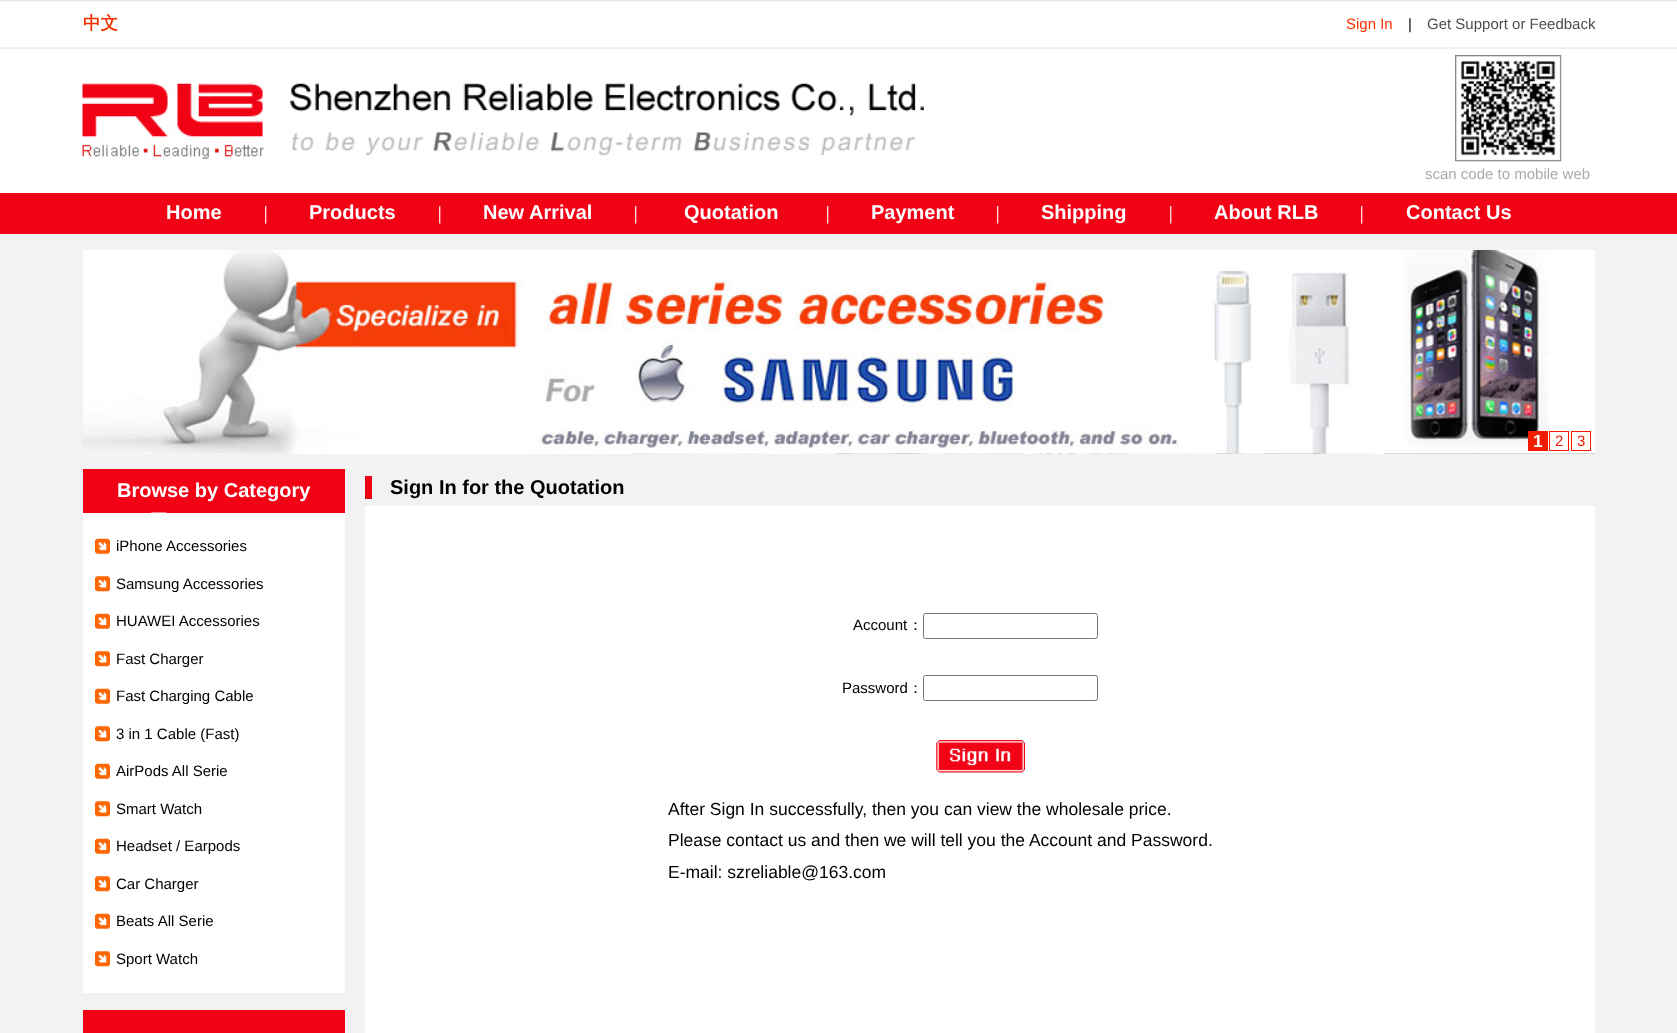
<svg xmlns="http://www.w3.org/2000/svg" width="1677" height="1033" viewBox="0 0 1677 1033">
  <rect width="100%" height="100%" fill="#f2f2f2"/>
  <rect x="0" y="1" width="1677" height="192" fill="#ffffff"/>
  <image x="0" y="0" width="1677" height="2" href="img1.png"/>
  <text x="83" y="29" font-family="WenQuanYi Zen Hei" font-size="17.5" font-weight="bold" fill="#f33300">中文</text>
  <text x="1346" y="29" font-family="Liberation Sans" font-size="15" fill="#ff3300">Sign In</text>
  <text x="1408" y="29" font-family="Liberation Sans" font-size="15" fill="#000000">|</text>
  <text x="1427" y="29" font-family="Liberation Sans" font-size="15" fill="#4e4d4d">Get Support or Feedback</text>
  <image x="0" y="47" width="1677" height="2" href="img2.png"/>
  <image x="82" y="83" width="182" height="76" href="img3.png"/>
  <image x="289" y="83" width="635" height="73" href="img4.png"/>
  <image x="1455" y="55" width="107" height="107" href="img5.png"/>
  <text x="1425" y="179" font-family="Liberation Sans" font-size="15" fill="#aaaaaa">scan code to mobile web</text>
  <rect x="0" y="193" width="1677" height="41" fill="#f10215"/>
  <text x="166" y="219" font-family="Liberation Sans" font-size="20" font-weight="bold" fill="#ffffff">Home</text>
  <text x="257" y="219" font-family="WenQuanYi Zen Hei" font-size="17.5" font-weight="500" fill="#ffffff">｜</text>
  <text x="309" y="219" font-family="Liberation Sans" font-size="20" font-weight="bold" fill="#ffffff">Products</text>
  <text x="431" y="219" font-family="WenQuanYi Zen Hei" font-size="17.5" font-weight="500" fill="#ffffff">｜</text>
  <text x="483" y="219" font-family="Liberation Sans" font-size="20" font-weight="bold" fill="#ffffff">New Arrival</text>
  <text x="627" y="219" font-family="WenQuanYi Zen Hei" font-size="17.5" font-weight="500" fill="#ffffff">｜</text>
  <text x="684" y="219" font-family="Liberation Sans" font-size="20" font-weight="bold" fill="#ffffff">Quotation</text>
  <text x="819" y="219" font-family="WenQuanYi Zen Hei" font-size="17.5" font-weight="500" fill="#ffffff">｜</text>
  <text x="871" y="219" font-family="Liberation Sans" font-size="20" font-weight="bold" fill="#ffffff">Payment</text>
  <text x="989" y="219" font-family="WenQuanYi Zen Hei" font-size="17.5" font-weight="500" fill="#ffffff">｜</text>
  <text x="1041" y="219" font-family="Liberation Sans" font-size="20" font-weight="bold" fill="#ffffff">Shipping</text>
  <text x="1162" y="219" font-family="WenQuanYi Zen Hei" font-size="17.5" font-weight="500" fill="#ffffff">｜</text>
  <text x="1214" y="219" font-family="Liberation Sans" font-size="20" font-weight="bold" fill="#ffffff">About RLB</text>
  <text x="1353" y="219" font-family="WenQuanYi Zen Hei" font-size="17.5" font-weight="500" fill="#ffffff">｜</text>
  <text x="1406" y="219" font-family="Liberation Sans" font-size="20" font-weight="bold" fill="#ffffff">Contact Us</text>
  <rect x="83" y="250" width="1512" height="204" fill="#ffffff"/>
  <image x="83" y="250" width="1466" height="204" href="img6.png"/>
  <image x="630" y="453" width="965" height="1" href="img7.png"/>
  <rect x="1528" y="431" width="20" height="20" fill="#f01b00"/>
  <text x="1533" y="447" font-family="Liberation Sans" font-size="17.5" font-weight="bold" fill="#ffffff">1</text>
  <rect x="1549.5" y="431.5" width="19" height="19" fill="none" stroke="#f01b00"/>
  <text x="1555" y="446" font-family="Liberation Sans" font-size="15" fill="#f01b00">2</text>
  <rect x="1571.5" y="431.5" width="19" height="19" fill="none" stroke="#f01b00"/>
  <text x="1577" y="446" font-family="Liberation Sans" font-size="15" fill="#f01b00">3</text>
  <rect x="83" y="513" width="262" height="480" fill="#ffffff"/>
  <rect x="83" y="469" width="262" height="44" fill="#f10215"/>
  <text x="117" y="497" font-family="Liberation Sans" font-size="20" font-weight="bold" fill="#ffffff">Browse by Category</text>
  <image x="151" y="512" width="16" height="1" href="img8.png"/>
  <image x="95" y="538" width="15" height="16" href="img9.png"/>
  <text x="116" y="551" font-family="Liberation Sans" font-size="15" fill="#000000">iPhone Accessories</text>
  <image x="95" y="576" width="15" height="16" href="img10.png"/>
  <text x="116" y="589" font-family="Liberation Sans" font-size="15" fill="#000000">Samsung Accessories</text>
  <image x="95" y="613" width="15" height="16" href="img9.png"/>
  <text x="116" y="626" font-family="Liberation Sans" font-size="15" fill="#000000">HUAWEI Accessories</text>
  <image x="95" y="651" width="15" height="16" href="img10.png"/>
  <text x="116" y="664" font-family="Liberation Sans" font-size="15" fill="#000000">Fast Charger</text>
  <image x="95" y="688" width="15" height="16" href="img9.png"/>
  <text x="116" y="701" font-family="Liberation Sans" font-size="15" fill="#000000">Fast Charging Cable</text>
  <image x="95" y="726" width="15" height="16" href="img10.png"/>
  <text x="116" y="739" font-family="Liberation Sans" font-size="15" fill="#000000">3 in 1 Cable (Fast)</text>
  <image x="95" y="763" width="15" height="16" href="img9.png"/>
  <text x="116" y="776" font-family="Liberation Sans" font-size="15" fill="#000000">AirPods All Serie</text>
  <image x="95" y="801" width="15" height="16" href="img10.png"/>
  <text x="116" y="814" font-family="Liberation Sans" font-size="15" fill="#000000">Smart Watch</text>
  <image x="95" y="838" width="15" height="16" href="img9.png"/>
  <text x="116" y="851" font-family="Liberation Sans" font-size="15" fill="#000000">Headset / Earpods</text>
  <image x="95" y="876" width="15" height="16" href="img10.png"/>
  <text x="116" y="889" font-family="Liberation Sans" font-size="15" fill="#000000">Car Charger</text>
  <image x="95" y="913" width="15" height="16" href="img9.png"/>
  <text x="116" y="926" font-family="Liberation Sans" font-size="15" fill="#000000">Beats All Serie</text>
  <image x="95" y="951" width="15" height="16" href="img10.png"/>
  <text x="116" y="964" font-family="Liberation Sans" font-size="15" fill="#000000">Sport Watch</text>
  <rect x="83" y="1010" width="262" height="23" fill="#f10215"/>
  <rect x="365" y="506" width="1230" height="527" fill="#ffffff"/>
  <rect x="365" y="476" width="7" height="23" fill="#f10215"/>
  <text x="390" y="494" font-family="Liberation Sans" font-size="20" font-weight="bold" fill="#000000">Sign In for the Quotation</text>
  <text x="853" y="630" font-family="Liberation Sans" font-size="15" fill="#000000">Account</text>
  <text x="908" y="630" font-family="WenQuanYi Zen Hei" font-size="15" font-weight="500" fill="#000000">：</text>
  <rect x="923.5" y="613.5" width="174" height="25" rx="2" fill="none" stroke="#767676"/>
  <text x="842" y="693" font-family="Liberation Sans" font-size="15" fill="#000000">Password</text>
  <text x="908" y="693" font-family="WenQuanYi Zen Hei" font-size="15" font-weight="500" fill="#000000">：</text>
  <rect x="923.5" y="675.5" width="174" height="25" rx="2" fill="none" stroke="#767676"/>
  <image x="936" y="740" width="89" height="33" href="img11.png"/>
  <text x="668" y="815" font-family="Liberation Sans" font-size="17.5" fill="#000000">After Sign In successfully, then you can view the wholesale price.</text>
  <text x="668" y="846" font-family="Liberation Sans" font-size="17.5" fill="#000000">Please contact us and then we will tell you the Account and Password.</text>
  <text x="668" y="878" font-family="Liberation Sans" font-size="17.5" fill="#000000">E-mail: szreliable@163.com</text>
</svg>
